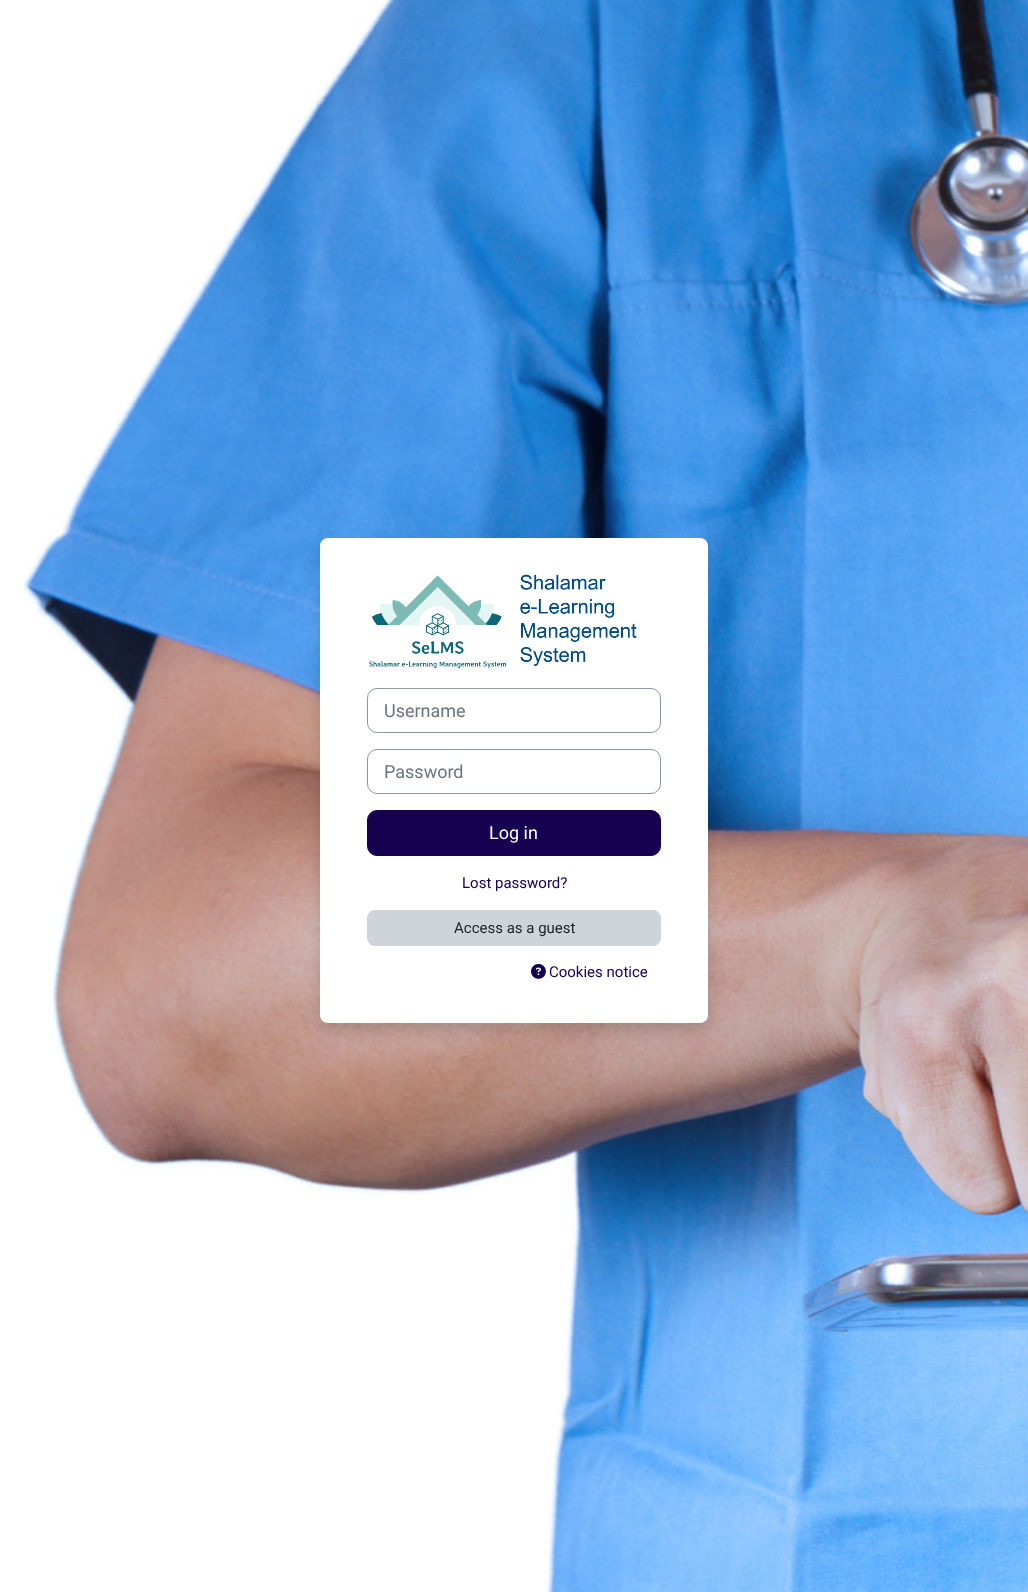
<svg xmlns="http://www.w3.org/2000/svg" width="1028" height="1592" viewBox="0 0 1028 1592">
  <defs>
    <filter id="blur1" x="-50%" y="-200%" width="200%" height="500%"><feGaussianBlur stdDeviation="8"/></filter>
  </defs>
  <rect width="100%" height="100%" fill="#ffffff"/>
  <image x="0" y="0" width="1028" height="1592" href="img1.png"/>
  <rect x="320" y="546" width="388" height="485" rx="8" fill="#000000" fill-opacity="0.15" filter="url(#blur1)"/>
  <rect x="320" y="538" width="388" height="485" rx="8" fill="#ffffff"/>
  <image x="369" y="574" width="268" height="95" href="img2.png"/>
  <rect x="367.5" y="688.5" width="293" height="44" rx="9.5" fill="none" stroke="#8f959e"/>
  <text x="384" y="717" font-family="Roboto" font-size="18" fill="#6a737b">Username</text>
  <rect x="367.5" y="749.5" width="293" height="44" rx="9.5" fill="none" stroke="#8f959e"/>
  <text x="384" y="778" font-family="Roboto" font-size="18" fill="#6a737b">Password</text>
  <rect x="367.5" y="810.5" width="293" height="45" rx="9.5" fill="#160050" stroke="#160050"/>
  <text x="489" y="839" font-family="Roboto" font-size="18" fill="#ffffff">Log in</text>
  <text x="462" y="888" font-family="Roboto" font-size="15" fill="#160050">Lost password?</text>
  <rect x="367.5" y="910.5" width="293" height="35" rx="7.5" fill="#ced4da" stroke="#ced4da"/>
  <text x="454" y="933" font-family="Roboto" font-size="15" fill="#1d2125">Access as a guest</text>
  <image x="531" y="963" width="15" height="16" href="img3.png"/>
  <text x="549" y="977" font-family="Roboto" font-size="15" fill="#160050">Cookies notice</text>
</svg>
